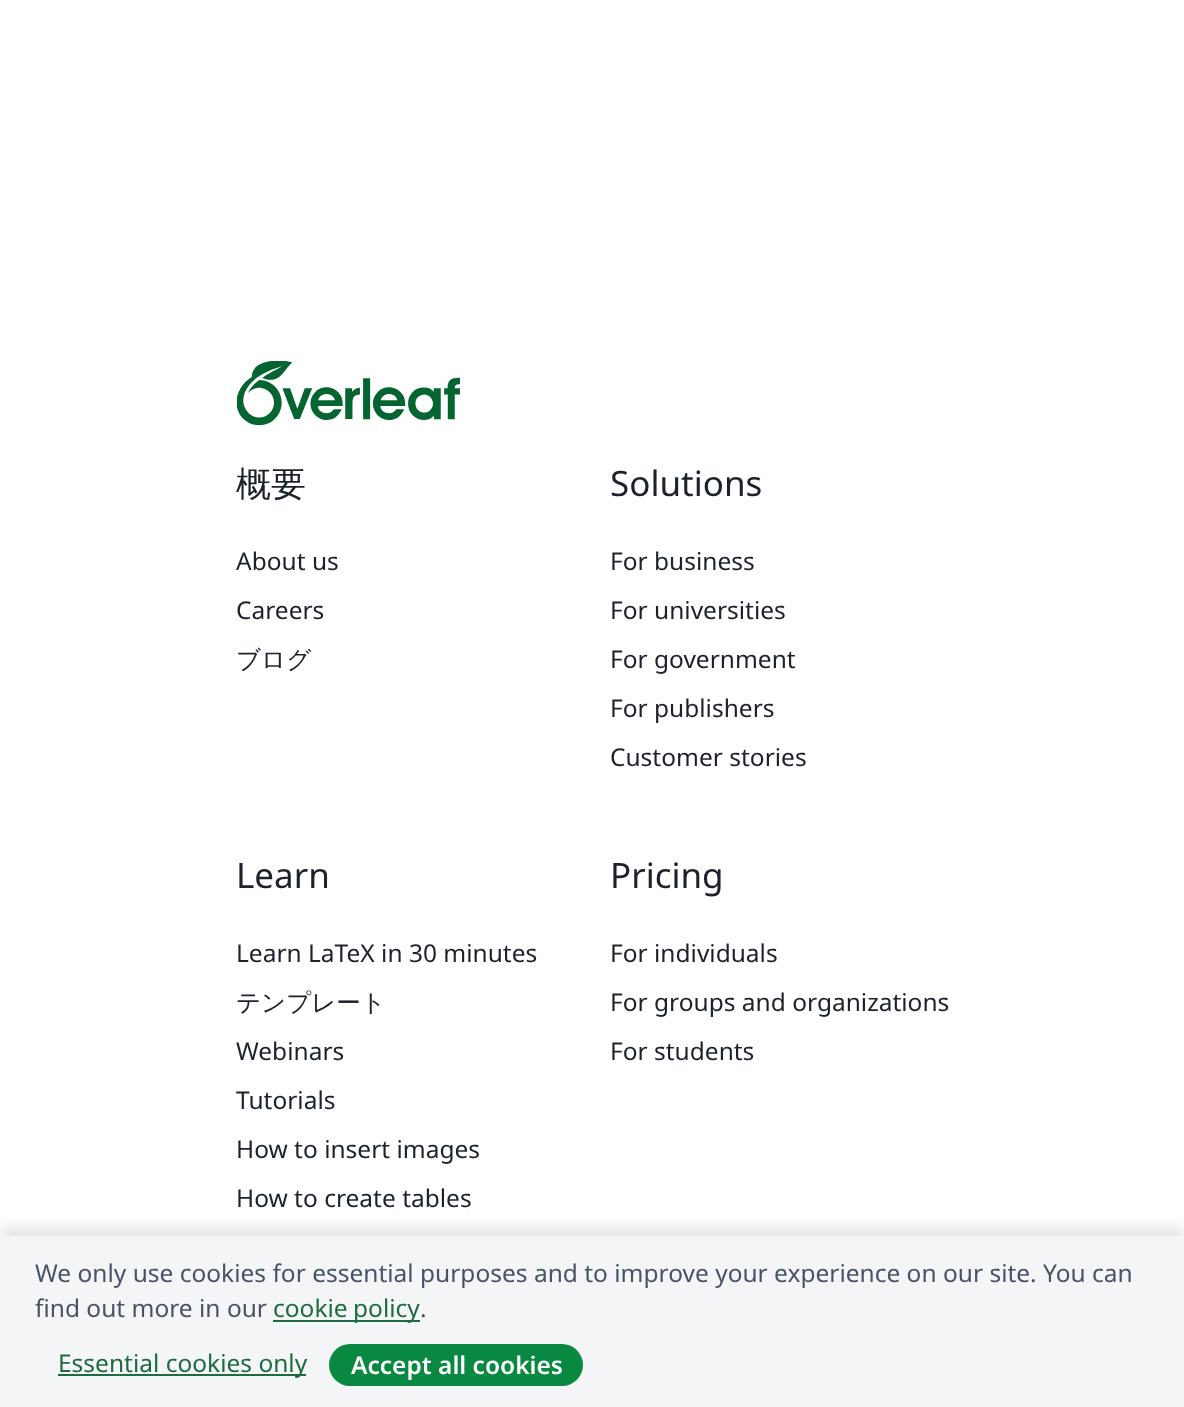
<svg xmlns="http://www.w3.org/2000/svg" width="1184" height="1407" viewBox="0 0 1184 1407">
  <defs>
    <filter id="blur1" x="-50%" y="-200%" width="200%" height="500%"><feGaussianBlur stdDeviation="7"/></filter>
  </defs>
  <rect width="100%" height="100%" fill="#ffffff"/>
  <image x="236" y="361" width="224" height="64" href="img1.png"/>
  <text x="236" y="496" font-family="WenQuanYi Zen Hei" font-size="35" font-weight="500" fill="#1b222c">概要</text>
  <text x="236" y="570" font-family="Noto Sans" font-size="24.5" fill="#1b222c">About us</text>
  <text x="236" y="619" font-family="Noto Sans" font-size="24.5" fill="#1b222c">Careers</text>
  <text x="236" y="668" font-family="WenQuanYi Zen Hei" font-size="24.5" font-weight="500" fill="#1b222c">ブログ</text>
  <text x="610" y="496" font-family="Noto Sans" font-size="35" fill="#1b222c">Solutions</text>
  <text x="610" y="570" font-family="Noto Sans" font-size="24.5" fill="#1b222c">For business</text>
  <text x="610" y="619" font-family="Noto Sans" font-size="24.5" fill="#1b222c">For universities</text>
  <text x="610" y="668" font-family="Noto Sans" font-size="24.5" fill="#1b222c">For government</text>
  <text x="610" y="717" font-family="Noto Sans" font-size="24.5" fill="#1b222c">For publishers</text>
  <text x="610" y="766" font-family="Noto Sans" font-size="24.5" fill="#1b222c">Customer stories</text>
  <text x="236" y="888" font-family="Noto Sans" font-size="35" fill="#1b222c">Learn</text>
  <text x="236" y="962" font-family="Noto Sans" font-size="24.5" fill="#1b222c">Learn LaTeX in 30 minutes</text>
  <text x="236" y="1011" font-family="WenQuanYi Zen Hei" font-size="24.5" font-weight="500" fill="#1b222c">テンプレート</text>
  <text x="236" y="1060" font-family="Noto Sans" font-size="24.5" fill="#1b222c">Webinars</text>
  <text x="236" y="1109" font-family="Noto Sans" font-size="24.5" fill="#1b222c">Tutorials</text>
  <text x="236" y="1158" font-family="Noto Sans" font-size="24.5" fill="#1b222c">How to insert images</text>
  <text x="236" y="1207" font-family="Noto Sans" font-size="24.5" fill="#1b222c">How to create tables</text>
  <text x="610" y="888" font-family="Noto Sans" font-size="35" fill="#1b222c">Pricing</text>
  <text x="610" y="962" font-family="Noto Sans" font-size="24.5" fill="#1b222c">For individuals</text>
  <text x="610" y="1011" font-family="Noto Sans" font-size="24.5" fill="#1b222c">For groups and organizations</text>
  <text x="610" y="1060" font-family="Noto Sans" font-size="24.5" fill="#1b222c">For students</text>
  <rect x="0" y="1227" width="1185" height="171" fill="#000000" fill-opacity="0.1" filter="url(#blur1)"/>
  <rect x="0" y="1236" width="1184" height="171" fill="#f4f5f6"/>
  <text x="35" y="1282" font-family="Noto Sans" font-size="24.5" fill="#495365">We only use cookies for essential purposes and to improve your experience on our site. You can</text>
  <text x="35" y="1317" font-family="Noto Sans" font-size="24.5" fill="#495365">find out more in our</text>
  <rect x="273" y="1320" width="147" height="2" fill="#1e6b41"/>
  <text x="273" y="1317" word-spacing="-1" font-family="Noto Sans" font-size="24.5" fill="#1e6b41">cookie policy</text>
  <text x="420" y="1317" font-family="Noto Sans" font-size="24.5" fill="#495365">.</text>
  <rect x="58" y="1374" width="248" height="2" fill="#1e6b41"/>
  <text x="58" y="1372" font-family="Noto Sans" font-size="24.5" fill="#1e6b41">Essential cookies only</text>
  <rect x="329" y="1344" width="254" height="42" rx="21" fill="#098842"/>
  <text x="351" y="1374" font-family="Noto Sans" font-size="24.5" font-weight="600" fill="#ffffff">Accept all cookies</text>
</svg>
